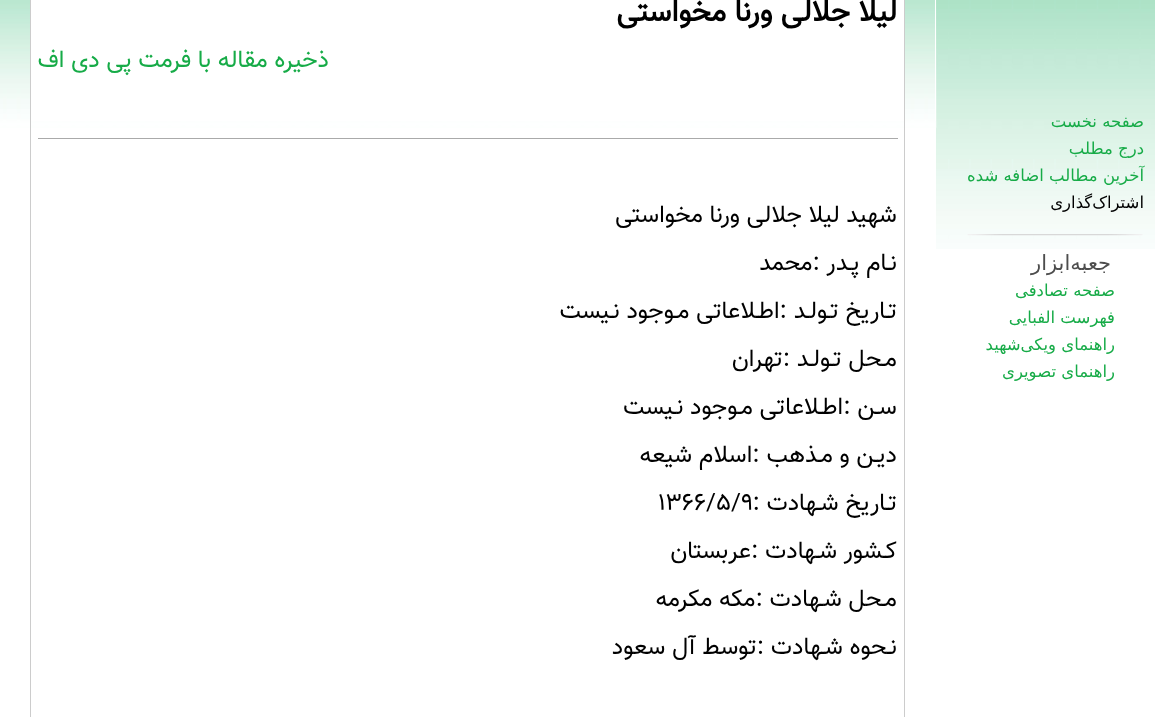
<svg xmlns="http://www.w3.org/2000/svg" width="1155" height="717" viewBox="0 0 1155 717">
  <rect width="100%" height="100%" fill="#ffffff"/>
  <image x="936" y="0" width="219" height="249" href="img1.png"/>
  <text x="1144" y="127" font-family="DejaVu Sans" font-size="16.5" direction="rtl" fill="#16ab47">صفحه نخست</text>
  <text x="1144" y="154" font-family="DejaVu Sans" font-size="16.5" direction="rtl" fill="#16ab47">درج مطلب</text>
  <text x="1144" y="181" font-family="DejaVu Sans" font-size="16.5" direction="rtl" fill="#16ab47">آخرین مطالب اضافه شده</text>
  <text x="1144" y="208" font-family="DejaVu Sans" font-size="16.5" direction="rtl" fill="#000000">اشتراک‌گذاری</text>
  <image x="967" y="234" width="176" height="2" href="img2.png"/>
  <text x="1111" y="270" font-family="DejaVu Sans" font-size="21" direction="rtl" fill="#4d4d4d">جعبه‌ابزار</text>
  <text x="1115" y="296" font-family="DejaVu Sans" font-size="16.5" direction="rtl" fill="#16ab47">صفحه تصادفی</text>
  <text x="1115" y="323" font-family="DejaVu Sans" font-size="16.5" direction="rtl" fill="#16ab47">فهرست الفبایی</text>
  <text x="1115" y="350" font-family="DejaVu Sans" font-size="16.5" direction="rtl" fill="#16ab47">راهنمای ویکی‌شهید</text>
  <text x="1115" y="377" font-family="DejaVu Sans" font-size="16.5" direction="rtl" fill="#16ab47">راهنمای تصویری</text>
  <image x="0" y="0" width="937" height="128" href="img3.png"/>
  <rect x="935" y="0" width="1" height="121" fill="#ffffff"/>
  <rect x="31" y="0" width="873" height="121" fill="#ffffff"/>
  <rect x="30.5" y="-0.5" width="874" height="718" fill="none" stroke="#cccccc"/>
  <text x="897" y="21" font-family="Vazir" font-size="30" font-weight="bold" direction="rtl" fill="#000000">لیلا جلالی ورنا مخواستی</text>
  <text x="329" y="67" font-family="Vazir" font-size="24" direction="rtl" fill="#16ab47">ذخیره مقاله با فرمت پی دی اف</text>
  <rect x="38" y="138" width="860" height="1" fill="#aaaaaa"/>
  <text x="897" y="222" font-family="Vazir" font-size="24" direction="rtl" fill="#000000">شهید لیلا جلالی ورنا مخواستی</text>
  <text x="897" y="270" font-family="Vazir" font-size="24" direction="rtl" fill="#000000">نـام پـدر :محمد</text>
  <text x="897" y="318" font-family="Vazir" font-size="24" direction="rtl" fill="#000000">تـاریخ تـولـد :اطـلاعاتی مـوجود نـیست</text>
  <text x="897" y="366" font-family="Vazir" font-size="24" direction="rtl" fill="#000000">مـحل تـولـد :تهران</text>
  <text x="897" y="414" font-family="Vazir" font-size="24" direction="rtl" fill="#000000">سـن :اطـلاعاتی مـوجود نـیست</text>
  <text x="897" y="462" font-family="Vazir" font-size="24" direction="rtl" fill="#000000">دیـن و مـذهب :اسلام شیعه</text>
  <text x="897" y="510" font-family="Vazir" font-size="24" direction="rtl" fill="#000000">تـاریخ شـهادت :</text>
  <text x="658" y="510" font-family="Vazir" font-size="24" fill="#000000">۱۳۶۶/۵/۹</text>
  <text x="897" y="558" font-family="Vazir" font-size="24" direction="rtl" fill="#000000">کـشور شـهادت :عربستان</text>
  <text x="897" y="606" font-family="Vazir" font-size="24" direction="rtl" fill="#000000">مـحل شـهادت :مکه مکرمه</text>
  <text x="897" y="654" font-family="Vazir" font-size="24" direction="rtl" fill="#000000">نـحوه شـهادت :توسط آل سعود</text>
</svg>
